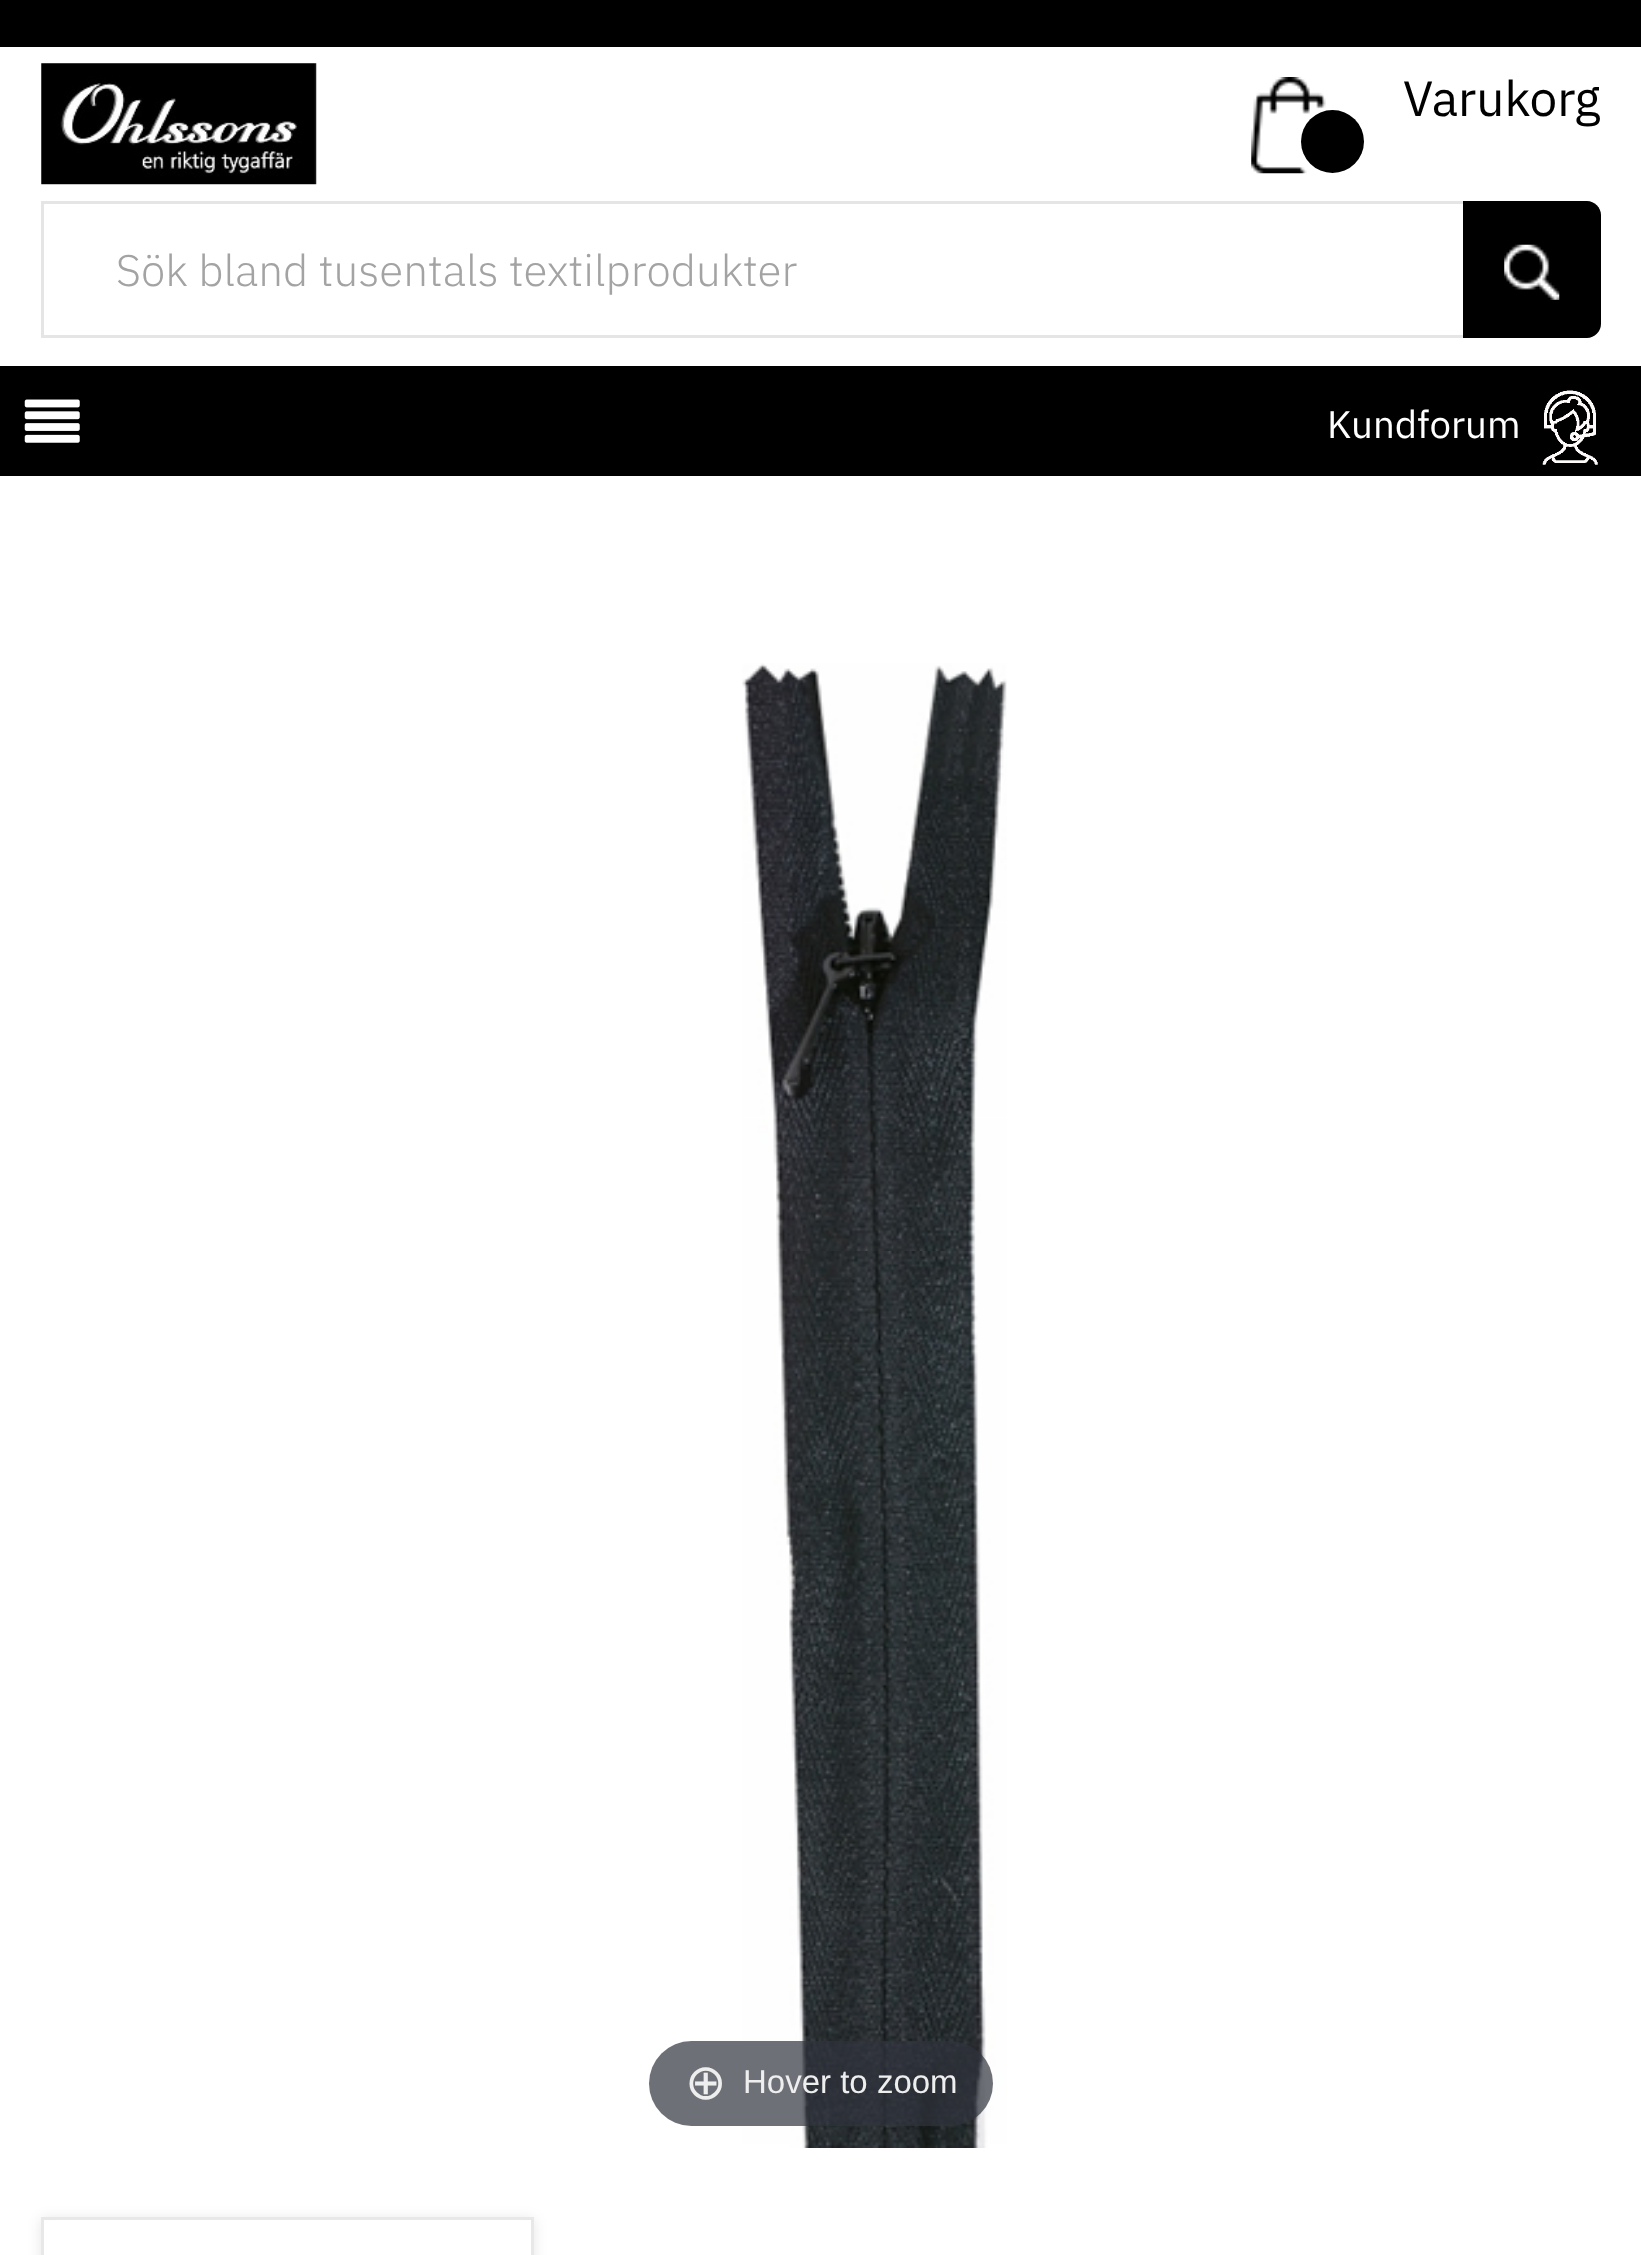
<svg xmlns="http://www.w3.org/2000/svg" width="1641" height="2255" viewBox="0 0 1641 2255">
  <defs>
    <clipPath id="clip1"><path d="M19 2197H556V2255H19ZM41 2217H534V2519H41Z" clip-rule="evenodd"/></clipPath>
    <filter id="blur1" x="-50%" y="-200%" width="200%" height="500%"><feGaussianBlur stdDeviation="7"/></filter>
  </defs>
  <rect width="100%" height="100%" fill="#ffffff"/>
  <rect x="0" y="0" width="1641" height="47" fill="#000000"/>
  <image x="41" y="63" width="276" height="122" href="img1.png"/>
  <image x="1251" y="77" width="75" height="97" href="img2.png"/>
  <circle cx="1332.5" cy="141.5" r="31.5" fill="#000000"/>
  <text x="1403" y="116" font-family="IBM Plex Sans" font-size="49.5" fill="#000000">Varukorg</text>
  <rect x="42.5" y="202.5" width="1463" height="134" fill="none" stroke="#e5e5e5" stroke-width="3"/>
  <text x="116" y="286" font-family="IBM Plex Sans" font-size="44" font-weight="300" fill="#a3a3a3">Sök bland tusentals textilprodukter</text>
  <path d="M1463 201H1587C1594.5 201 1601 207.5 1601 215V324C1601 331.5 1594.5 338 1587 338H1463Z" fill="#000000"/>
  <image x="1504" y="244" width="56" height="56" href="img3.png"/>
  <rect x="0" y="366" width="1641" height="110" fill="#000000"/>
  <image x="24" y="399" width="56" height="44" href="img4.png"/>
  <text x="1327" y="438" font-family="IBM Plex Sans" font-size="38.5" fill="#ffffff">Kundforum</text>
  <image x="1542" y="390" width="56" height="75" href="img5.png"/>
  <image x="742" y="663" width="265" height="1485" href="img6.png"/>
  <rect x="649" y="2041" width="344" height="85" rx="42.5" fill="#31333d" fill-opacity="0.7"/>
  <text x="685" y="2099" font-family="DejaVu Sans" font-size="49.5" fill="#eeeeee">⊕</text>
  <text x="743" y="2093" font-family="Liberation Sans" font-size="33" fill="#eeeeee">Hover to zoom</text>
  <g clip-path="url(#clip1)">
    <rect x="41" y="2219" width="493" height="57" fill="#000000" fill-opacity="0.1" filter="url(#blur1)"/>
  </g>
  <rect x="42.5" y="2218.5" width="490" height="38" fill="none" stroke="#e8e8e8" stroke-width="3"/>
</svg>
